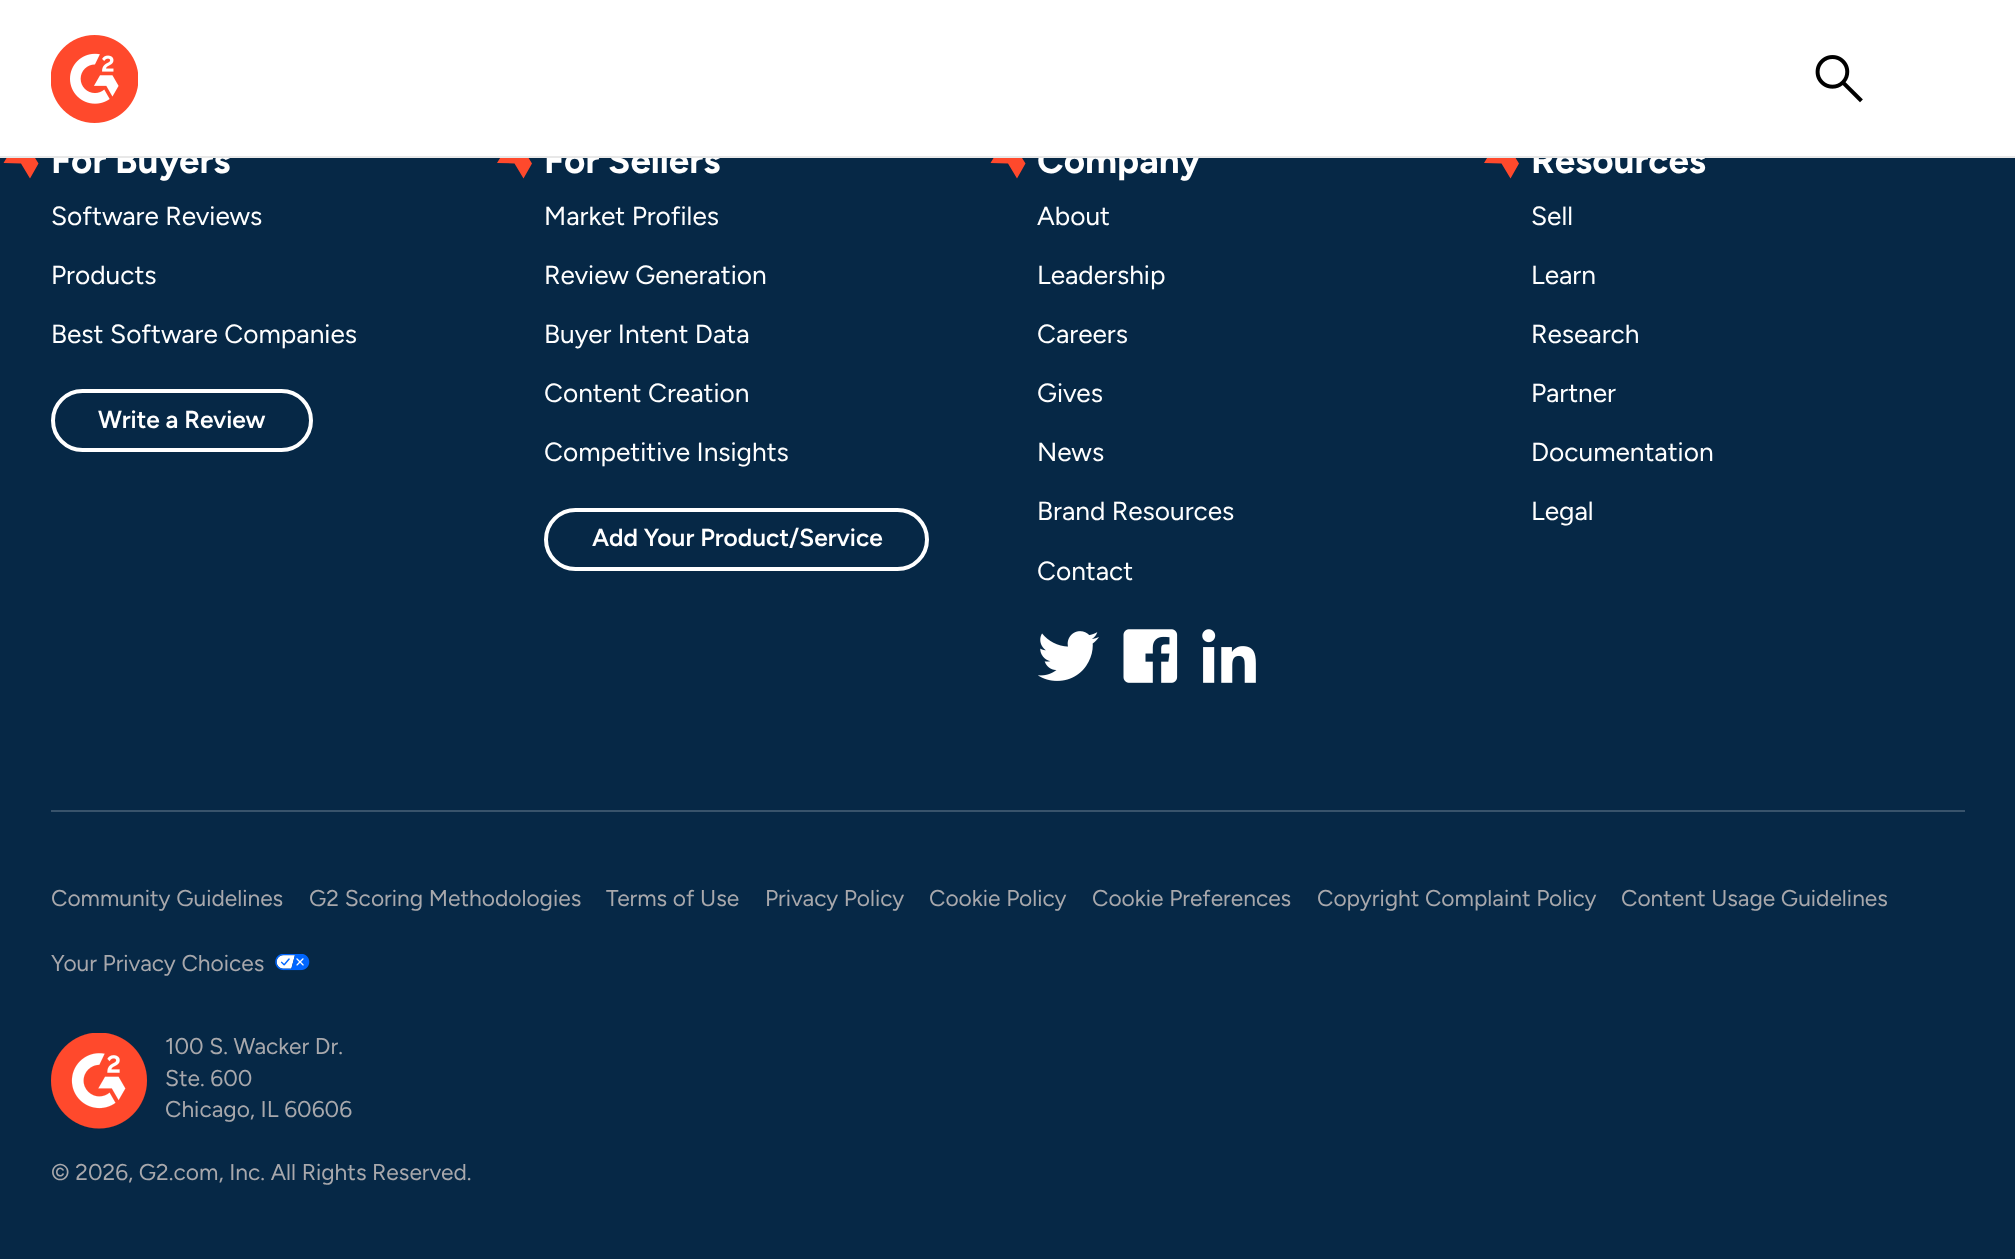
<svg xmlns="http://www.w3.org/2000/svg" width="2015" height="1259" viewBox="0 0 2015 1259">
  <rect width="100%" height="100%" fill="#062846"/>
  <path d="M29.5 149H12L3.5 163L21 163.5L30 178.5L38.5 163.5Z" fill="#ff492c"/>
  <path d="M523 149H505.5L497 163L514.5 163.5L523.5 178.5L532 163.5Z" fill="#ff492c"/>
  <path d="M1016.5 149H999L990.5 163L1008 163.5L1017 178.5L1025.5 163.5Z" fill="#ff492c"/>
  <path d="M1510 149H1492.5L1484 163L1501.5 163.5L1510.5 178.5L1519 163.5Z" fill="#ff492c"/>
  <rect x="0" y="0" width="2015" height="156" fill="#ffffff"/>
  <text x="51" y="173" font-family="Figtree" font-size="36.75" font-weight="bold" fill="#ffffff">For Buyers</text>
  <text x="544" y="173" font-family="Figtree" font-size="36.75" font-weight="bold" fill="#ffffff">For Sellers</text>
  <text x="1037" y="173" font-family="Figtree" font-size="36.75" font-weight="bold" fill="#ffffff">Company</text>
  <text x="1531" y="173" font-family="Figtree" font-size="36.75" font-weight="bold" fill="#ffffff">Resources</text>
  <rect x="0" y="156" width="2015" height="2" fill="#e8e8e8"/>
  <image x="51" y="35" width="87" height="88" href="img1.png"/>
  <image x="1815" y="55" width="48" height="48" href="img2.png"/>
  <text x="51" y="225" font-family="Figtree" font-size="26.25" fill="#ffffff">Software Reviews</text>
  <text x="51" y="284" font-family="Figtree" font-size="26.25" fill="#ffffff">Products</text>
  <text x="51" y="343" font-family="Figtree" font-size="26.25" fill="#ffffff">Best Software Companies</text>
  <rect x="53" y="391" width="258" height="59" rx="29.5" fill="none" stroke="#ffffff" stroke-width="4"/>
  <text x="98" y="428" font-family="Figtree" font-size="24.5" font-weight="600" fill="#ffffff">Write a Review</text>
  <text x="544" y="225" font-family="Figtree" font-size="26.25" fill="#ffffff">Market Profiles</text>
  <text x="544" y="284" font-family="Figtree" font-size="26.25" fill="#ffffff">Review Generation</text>
  <text x="544" y="343" font-family="Figtree" font-size="26.25" fill="#ffffff">Buyer Intent Data</text>
  <text x="544" y="402" font-family="Figtree" font-size="26.25" fill="#ffffff">Content Creation</text>
  <text x="544" y="461" font-family="Figtree" font-size="26.25" fill="#ffffff">Competitive Insights</text>
  <rect x="546" y="510" width="381" height="59" rx="29.5" fill="none" stroke="#ffffff" stroke-width="4"/>
  <text x="592" y="546" font-family="Figtree" font-size="24.5" font-weight="600" fill="#ffffff">Add Your Product/Service</text>
  <text x="1037" y="225" font-family="Figtree" font-size="26.25" fill="#ffffff">About</text>
  <text x="1037" y="284" font-family="Figtree" font-size="26.25" fill="#ffffff">Leadership</text>
  <text x="1037" y="343" font-family="Figtree" font-size="26.25" fill="#ffffff">Careers</text>
  <text x="1037" y="402" font-family="Figtree" font-size="26.25" fill="#ffffff">Gives</text>
  <text x="1037" y="461" font-family="Figtree" font-size="26.25" fill="#ffffff">News</text>
  <text x="1037" y="520" font-family="Figtree" font-size="26.25" fill="#ffffff">Brand Resources</text>
  <text x="1037" y="580" font-family="Figtree" font-size="26.25" fill="#ffffff">Contact</text>
  <image x="1038" y="631" width="61" height="50" href="img3.png"/>
  <image x="1123" y="629" width="55" height="54" href="img4.png"/>
  <image x="1202" y="629" width="54" height="54" href="img5.png"/>
  <text x="1531" y="225" font-family="Figtree" font-size="26.25" fill="#ffffff">Sell</text>
  <text x="1531" y="284" font-family="Figtree" font-size="26.25" fill="#ffffff">Learn</text>
  <text x="1531" y="343" font-family="Figtree" font-size="26.25" fill="#ffffff">Research</text>
  <text x="1531" y="402" font-family="Figtree" font-size="26.25" fill="#ffffff">Partner</text>
  <text x="1531" y="461" font-family="Figtree" font-size="26.25" fill="#ffffff">Documentation</text>
  <text x="1531" y="520" font-family="Figtree" font-size="26.25" fill="#ffffff">Legal</text>
  <rect x="51" y="810" width="1914" height="2" fill="#38536b"/>
  <text x="51" y="906" font-family="Figtree" font-size="22.75" fill="#a8a8ac">Community Guidelines</text>
  <text x="309" y="906" font-family="Figtree" font-size="22.75" fill="#a8a8ac">G2 Scoring Methodologies</text>
  <text x="606" y="906" font-family="Figtree" font-size="22.75" fill="#a8a8ac">Terms of Use</text>
  <text x="765" y="906" font-family="Figtree" font-size="22.75" fill="#a8a8ac">Privacy Policy</text>
  <text x="929" y="906" font-family="Figtree" font-size="22.75" fill="#a8a8ac">Cookie Policy</text>
  <text x="1092" y="906" font-family="Figtree" font-size="22.75" fill="#a8a8ac">Cookie Preferences</text>
  <text x="1317" y="906" font-family="Figtree" font-size="22.75" fill="#a8a8ac">Copyright Complaint Policy</text>
  <text x="1621" y="906" font-family="Figtree" font-size="22.75" fill="#a8a8ac">Content Usage Guidelines</text>
  <text x="51" y="971" font-family="Figtree" font-size="22.75" fill="#a8a8ac">Your Privacy Choices</text>
  <image x="275" y="954" width="35" height="17" href="img6.png"/>
  <image x="51" y="1033" width="96" height="96" href="img7.png"/>
  <text x="165" y="1054" font-family="Figtree" font-size="22.75" fill="#a8a8ac">100 S. Wacker Dr.</text>
  <text x="165" y="1086" font-family="Figtree" font-size="22.75" fill="#a8a8ac">Ste. 600</text>
  <text x="165" y="1117" font-family="Figtree" font-size="22.75" fill="#a8a8ac">Chicago, IL 60606</text>
  <text x="51" y="1180" font-family="Figtree" font-size="22.75" fill="#a8a8ac">© 2026, G2.com, Inc. All Rights Reserved.</text>
</svg>
